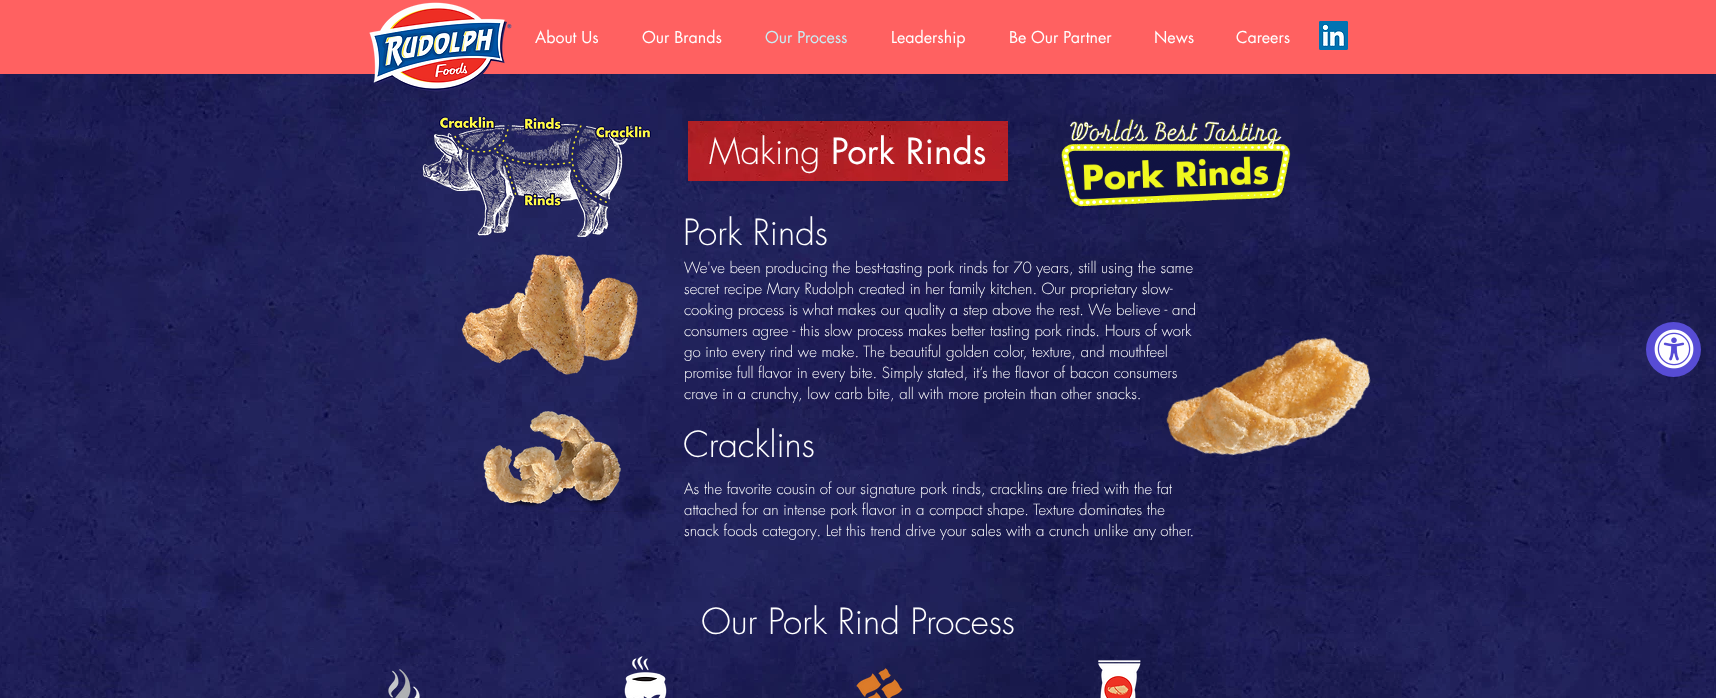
<svg xmlns="http://www.w3.org/2000/svg" width="1716" height="698" viewBox="0 0 1716 698">
  <rect width="100%" height="100%" fill="#ffffff"/>
  <rect x="0" y="0" width="1716" height="74" fill="#ff6161"/>
  <image x="0" y="74" width="1716" height="624" href="img13.png"/>
  <image x="369" y="2" width="143" height="90" href="img1.png"/>
  <text x="535" y="43" font-family="futura" font-size="16" fill="#ffffff">About Us</text>
  <text x="642" y="43" font-family="futura" font-size="16" fill="#ffffff">Our Brands</text>
  <text x="765" y="43" font-family="futura" font-size="16" fill="#c8eef5">Our Process</text>
  <text x="891" y="43" font-family="futura" font-size="16" fill="#ffffff">Leadership</text>
  <text x="1009" y="43" font-family="futura" font-size="16" fill="#ffffff">Be Our Partner</text>
  <text x="1154" y="43" font-family="futura" font-size="16" fill="#ffffff">News</text>
  <text x="1236" y="43" font-family="futura" font-size="16" fill="#ffffff">Careers</text>
  <image x="1319" y="21" width="29" height="29" href="img2.png"/>
  <image x="422" y="115" width="229" height="123" href="img3.png"/>
  <image x="688" y="121" width="320" height="60" href="img4.png"/>
  <image x="1061" y="119" width="230" height="88" href="img5.png"/>
  <text x="709" y="164" font-family="futura" font-size="35" font-weight="300" fill="#ffffff">Making</text>
  <text x="831" y="164" font-family="futura" font-size="35" fill="#ffffff">Pork Rinds</text>
  <text x="683" y="245" font-family="futura" font-size="35" font-weight="300" fill="#ffffff">Pork Rinds</text>
  <image x="461" y="254" width="177" height="121" href="img6.png"/>
  <text x="684" y="273" font-family="futura" font-size="15" font-weight="300" fill="#ffffff">We've been producing the best-tasting pork rinds for 70 years, still using the same</text>
  <text x="684" y="294" font-family="futura" font-size="15" font-weight="300" fill="#ffffff">secret recipe Mary Rudolph created in her family kitchen. Our proprietary slow-</text>
  <text x="684" y="315" font-family="futura" font-size="15" font-weight="300" fill="#ffffff">cooking process is what makes our quality a step above the rest. We believe - and</text>
  <image x="1166" y="337" width="205" height="119" href="img7.png"/>
  <text x="684" y="336" font-family="futura" font-size="15" font-weight="300" fill="#ffffff">consumers agree - this slow process makes better tasting pork rinds. Hours of work</text>
  <text x="684" y="357" font-family="futura" font-size="15" font-weight="300" fill="#ffffff">go into every rind we make. The beautiful golden color, texture, and mouthfeel</text>
  <text x="684" y="378" font-family="futura" font-size="15" font-weight="300" fill="#ffffff">promise full flavor in every bite. Simply stated, it’s the flavor of bacon consumers</text>
  <text x="684" y="399" font-family="futura" font-size="15" font-weight="300" fill="#ffffff">crave in a crunchy, low carb bite, all with more protein than other snacks.</text>
  <image x="483" y="411" width="139" height="101" href="img8.png"/>
  <text x="683" y="457" font-family="futura" font-size="35" font-weight="300" fill="#ffffff">Cracklins</text>
  <text x="684" y="494" font-family="futura" font-size="15" font-weight="300" fill="#ffffff">As the favorite cousin of our signature pork rinds, cracklins are fried with the fat</text>
  <text x="684" y="515" font-family="futura" font-size="15" font-weight="300" fill="#ffffff">attached for an intense pork flavor in a compact shape. Texture dominates the</text>
  <text x="684" y="536" font-family="futura" font-size="15" font-weight="300" fill="#ffffff">snack foods category. Let this trend drive your sales with a crunch unlike any other.</text>
  <text x="701" y="634" font-family="futura" font-size="35" font-weight="300" fill="#ffffff">Our Pork Rind Process</text>
  <image x="388" y="669" width="32" height="29" href="img9.png"/>
  <image x="624" y="656" width="43" height="42" href="img10.png"/>
  <image x="856" y="668" width="47" height="30" href="img11.png"/>
  <image x="1098" y="660" width="43" height="38" href="img12.png"/>
  <circle cx="1673.5" cy="349.5" r="27.5" fill="#574cd5"/>
  <image x="1654" y="329" width="40" height="40" href="img14.png"/>
</svg>
